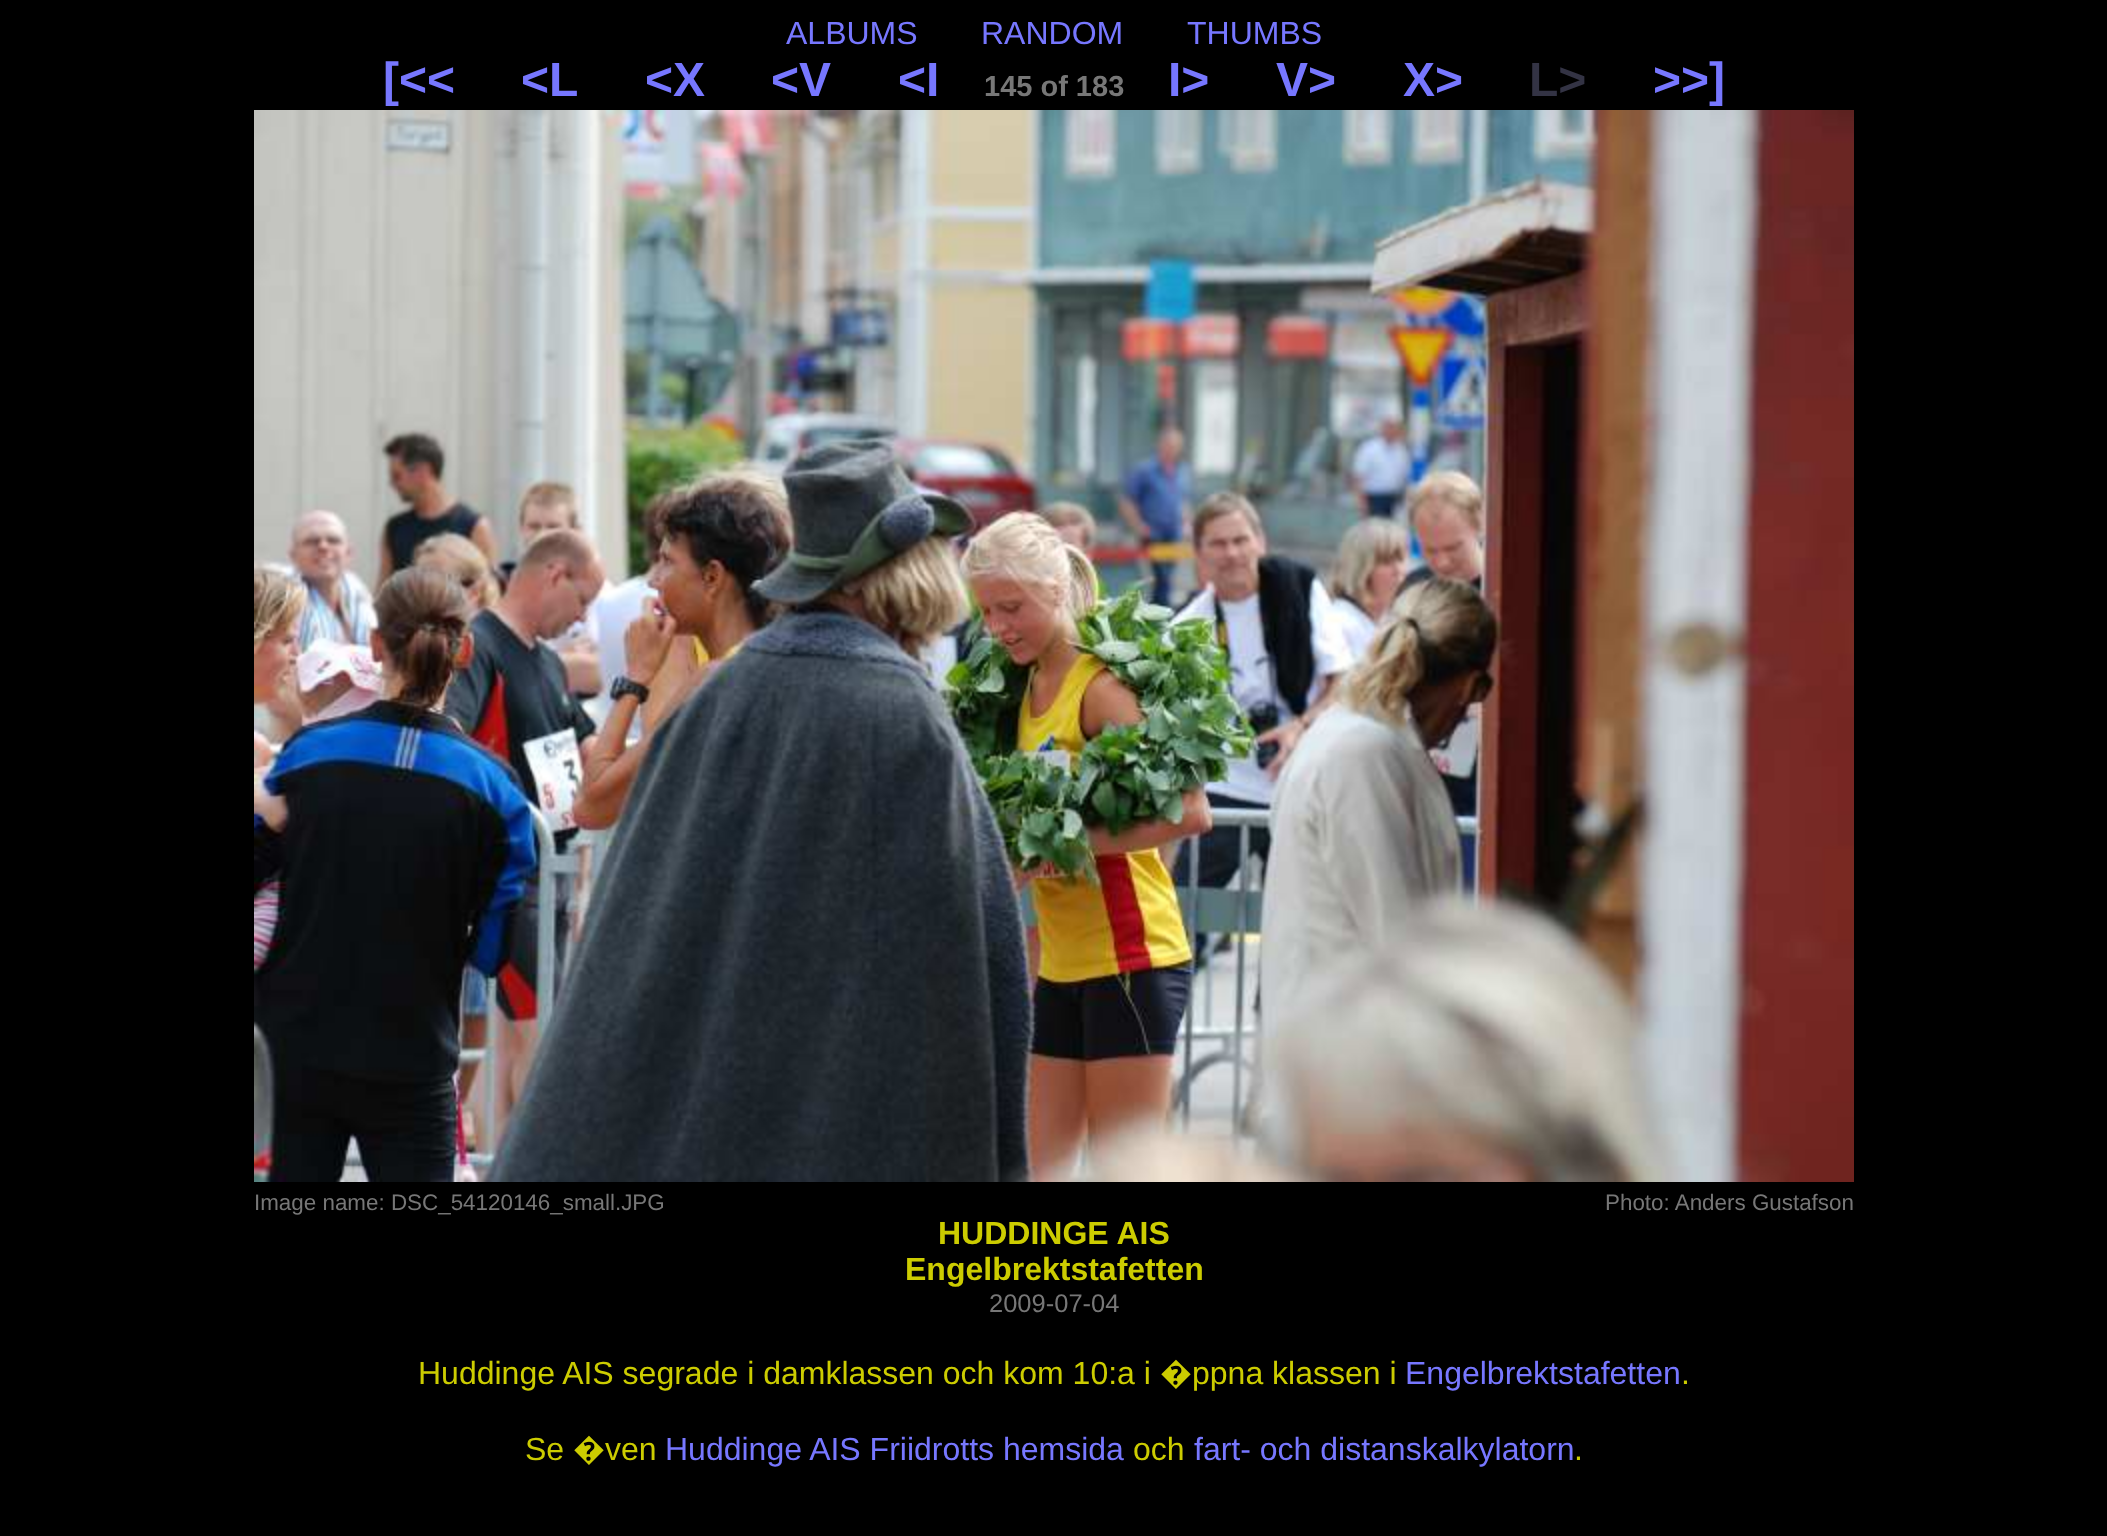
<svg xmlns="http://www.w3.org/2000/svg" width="2107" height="1536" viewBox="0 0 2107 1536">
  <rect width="100%" height="100%" fill="#000000"/>
  <text x="786" y="44" font-family="Liberation Sans" font-size="32" fill="#7777ff">ALBUMS</text>
  <text x="981" y="44" font-family="Liberation Sans" font-size="32" fill="#7777ff">RANDOM</text>
  <text x="1187" y="44" font-family="Liberation Sans" font-size="32" fill="#7777ff">THUMBS</text>
  <text x="383" y="96" font-family="Liberation Sans" font-size="48" font-weight="bold" fill="#7777ff">[&lt;&lt;</text>
  <text x="521" y="96" font-family="Liberation Sans" font-size="48" font-weight="bold" fill="#7777ff">&lt;L</text>
  <text x="645" y="96" font-family="Liberation Sans" font-size="48" font-weight="bold" fill="#7777ff">&lt;X</text>
  <text x="771" y="96" font-family="Liberation Sans" font-size="48" font-weight="bold" fill="#7777ff">&lt;V</text>
  <text x="898" y="96" font-family="Liberation Sans" font-size="48" font-weight="bold" fill="#7777ff">&lt;I</text>
  <text x="984" y="96" font-family="Liberation Sans" font-size="29" font-weight="bold" fill="#777777">145 of 183</text>
  <text x="1168" y="96" font-family="Liberation Sans" font-size="48" font-weight="bold" fill="#7777ff">I&gt;</text>
  <text x="1276" y="96" font-family="Liberation Sans" font-size="48" font-weight="bold" fill="#7777ff">V&gt;</text>
  <text x="1403" y="96" font-family="Liberation Sans" font-size="48" font-weight="bold" fill="#7777ff">X&gt;</text>
  <text x="1529" y="96" font-family="Liberation Sans" font-size="48" font-weight="bold" fill="#333344">L&gt;</text>
  <text x="1653" y="96" font-family="Liberation Sans" font-size="48" font-weight="bold" fill="#7777ff">&gt;&gt;]</text>
  <image x="254" y="110" width="1600" height="1072" href="img1.png"/>
  <text x="254" y="1210" font-family="Liberation Sans" font-size="22.4" fill="#777777">Image name: DSC_54120146_small.JPG</text>
  <text x="1605" y="1210" font-family="Liberation Sans" font-size="22.4" fill="#777777">Photo: Anders Gustafson</text>
  <text x="938" y="1244" font-family="Liberation Sans" font-size="32" font-weight="bold" fill="#cccc00">HUDDINGE AIS</text>
  <text x="905" y="1280" font-family="Liberation Sans" font-size="32" font-weight="bold" fill="#cccc00">Engelbrektstafetten</text>
  <text x="989" y="1312" font-family="Liberation Sans" font-size="25.5" fill="#777777">2009-07-04</text>
  <text x="418" y="1384" font-family="Liberation Sans" font-size="32" fill="#cccc00">Huddinge AIS segrade i damklassen och kom 10:a i</text>
  <text x="1160" y="1384" font-family="Noto Sans" font-size="32" fill="#cccc00">�</text>
  <text x="1192" y="1384" font-family="Liberation Sans" font-size="32" fill="#cccc00">ppna klassen i</text>
  <text x="1405" y="1384" font-family="Liberation Sans" font-size="32" fill="#7777ff">Engelbrektstafetten</text>
  <text x="1681" y="1384" font-family="Liberation Sans" font-size="32" fill="#cccc00">.</text>
  <text x="525" y="1460" font-family="Liberation Sans" font-size="32" fill="#cccc00">Se</text>
  <text x="573" y="1460" font-family="Noto Sans" font-size="32" fill="#cccc00">�</text>
  <text x="605" y="1460" font-family="Liberation Sans" font-size="32" fill="#cccc00">ven</text>
  <text x="665" y="1460" font-family="Liberation Sans" font-size="32" fill="#7777ff">Huddinge AIS Friidrotts hemsida</text>
  <text x="1133" y="1460" font-family="Liberation Sans" font-size="32" fill="#cccc00">och</text>
  <text x="1194" y="1460" font-family="Liberation Sans" font-size="32" fill="#7777ff">fart- och distanskalkylatorn</text>
  <text x="1574" y="1460" font-family="Liberation Sans" font-size="32" fill="#cccc00">.</text>
</svg>
